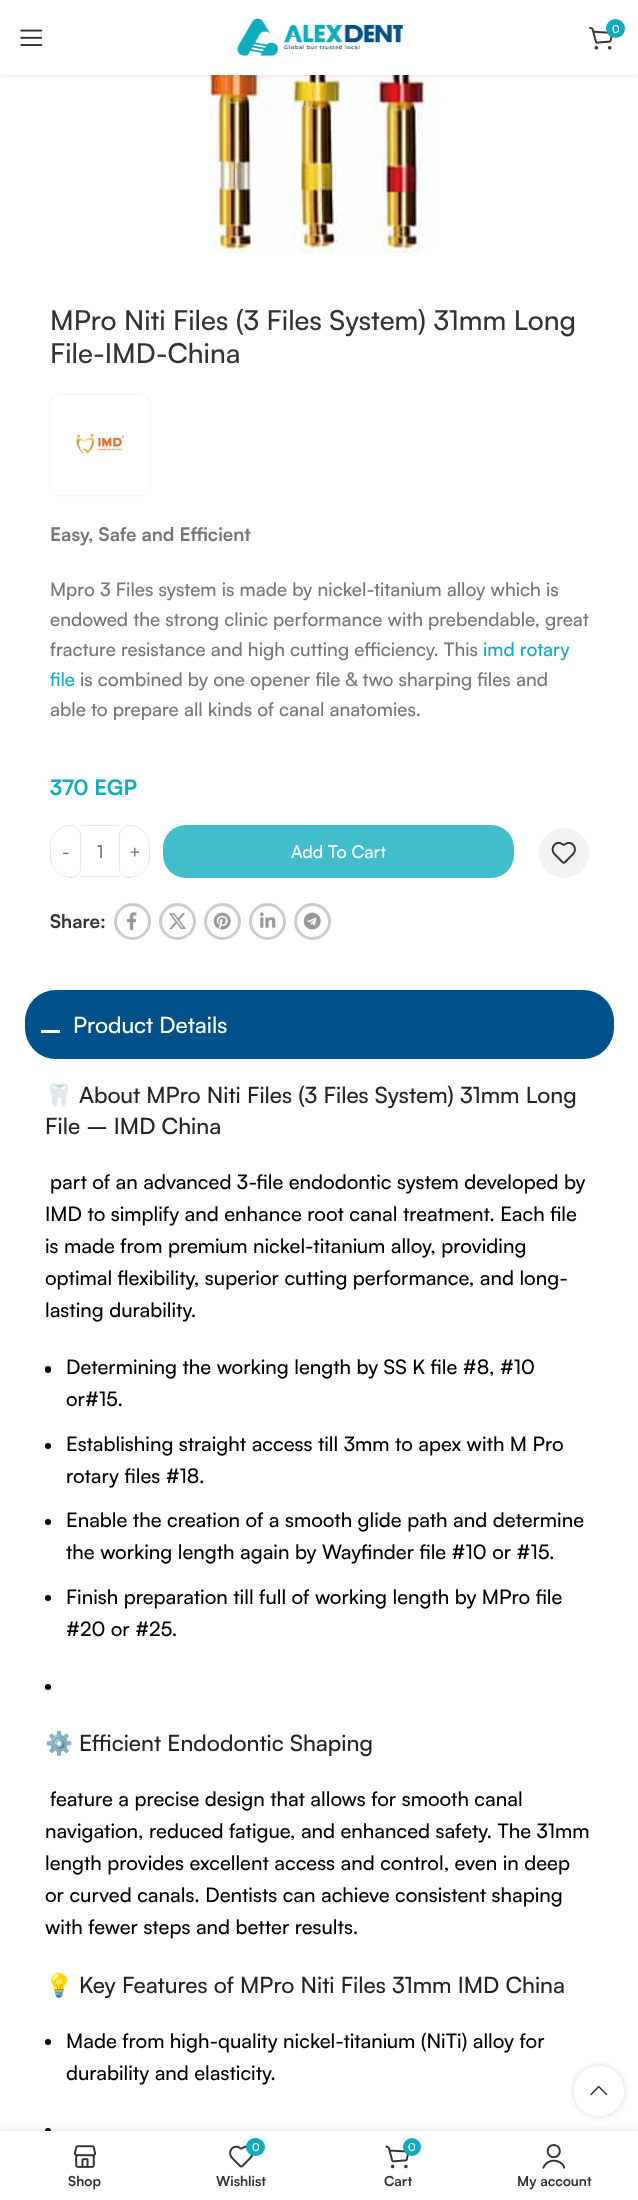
<svg xmlns="http://www.w3.org/2000/svg" width="638" height="2200" viewBox="0 0 638 2200">
  <defs>
    <filter id="blur1" x="-50%" y="-200%" width="200%" height="500%"><feGaussianBlur stdDeviation="2"/></filter>
    <filter id="blur2" x="-50%" y="-200%" width="200%" height="500%"><feGaussianBlur stdDeviation="1"/></filter>
    <clipPath id="clip1"><path d="M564 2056H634V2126H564ZM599 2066C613 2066 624 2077 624 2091C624 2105 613 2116 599 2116C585 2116 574 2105 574 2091C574 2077 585 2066 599 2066Z" clip-rule="evenodd"/></clipPath>
    <filter id="blur3" x="-50%" y="-200%" width="200%" height="500%"><feGaussianBlur stdDeviation="3"/></filter>
    <filter id="blur4" x="-50%" y="-200%" width="200%" height="500%"><feGaussianBlur stdDeviation="5.5"/></filter>
  </defs>
  <rect width="100%" height="100%" fill="#ffffff"/>
  <image x="208" y="75" width="226" height="178" href="img4.png"/>
  <rect x="0" y="1" width="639" height="75" fill="#000000" fill-opacity="0.1" filter="url(#blur1)"/>
  <rect x="0" y="0" width="638" height="75" fill="#ffffff"/>
  <image x="20" y="29" width="23" height="17" href="img1.png"/>
  <image x="236" y="18" width="167" height="38" href="img2.png"/>
  <image x="589" y="26" width="24" height="24" href="img3.png"/>
  <circle cx="615.5" cy="28.5" r="9.5" fill="#0eacbd"/>
  <text x="612" y="33" font-family="Satoshi" font-size="11" font-weight="500" fill="#ffffff">0</text>
  <text x="50" y="330" font-family="Satoshi" font-size="27.5" font-weight="500" fill="#333333">MPro Niti Files (3 Files System) 31mm Long</text>
  <text x="50" y="363" font-family="Satoshi" font-size="27.5" font-weight="500" fill="#333333">File-IMD-China</text>
  <rect x="50" y="395" width="100" height="100" rx="9" fill="#000000" fill-opacity="0.12" filter="url(#blur2)"/>
  <rect x="50" y="395" width="100" height="100" rx="9" fill="#ffffff"/>
  <image x="76" y="433" width="48" height="22" href="img5.png"/>
  <text x="50" y="541" font-family="Satoshi" font-size="18.75" font-weight="bold" fill="#767676">Easy, Safe and Efficient</text>
  <text x="50" y="596" font-family="Satoshi" font-size="18.75" font-weight="500" fill="#767676">Mpro 3 Files system is made by nickel-titanium alloy which is</text>
  <text x="50" y="626" font-family="Satoshi" font-size="18.75" font-weight="500" fill="#767676">endowed the strong clinic performance with prebendable, great</text>
  <text x="50" y="656" font-family="Satoshi" font-size="18.75" font-weight="500" fill="#767676">fracture resistance and high cutting efficiency. This</text>
  <text x="483" y="656" font-family="Satoshi" font-size="18.75" font-weight="500" fill="#0eacbd">imd rotary</text>
  <text x="50" y="686" font-family="Satoshi" font-size="18.75" font-weight="500" fill="#0eacbd">file</text>
  <text x="80" y="686" font-family="Satoshi" font-size="18.75" font-weight="500" fill="#767676">is combined by one opener file &amp; two sharping files and</text>
  <text x="50" y="716" font-family="Satoshi" font-size="18.75" font-weight="500" fill="#767676">able to prepare all kinds of canal anatomies.</text>
  <text x="50" y="795" font-family="Satoshi" font-size="21.25" font-weight="bold" fill="#0eacbd">370 EGP</text>
  <path d="M71 825.5C76 825.5 80.5 830 80.5 835V868C80.5 873 76 877.5 71 877.5C59.5 877.5 50.5 868.5 50.5 857V846C50.5 834.5 59.5 825.5 71 825.5Z" fill="none" stroke="#e6e6e6"/>
  <text x="62" y="858" font-family="Satoshi" font-size="17.5" font-weight="500" fill="#767676">-</text>
  <rect x="81" y="825" width="38" height="1" fill="#e6e6e6"/>
  <rect x="81" y="876" width="38" height="1" fill="#e6e6e6"/>
  <text x="97" y="858" font-family="Satoshi" font-size="17.5" font-weight="500" fill="#767676">1</text>
  <path d="M129 825.5C140.5 825.5 149.5 834.5 149.5 846V857C149.5 868.5 140.5 877.5 129 877.5C124 877.5 119.5 873 119.5 868V835C119.5 830 124 825.5 129 825.5Z" fill="none" stroke="#e6e6e6"/>
  <text x="129" y="858" font-family="Satoshi" font-size="17.5" font-weight="500" fill="#767676">+</text>
  <rect x="163" y="825" width="351" height="53" rx="23" fill="#41bdcb"/>
  <text x="291" y="858" font-family="Satoshi" font-size="17.5" font-weight="500" fill="#ffffff">Add To Cart</text>
  <circle cx="564" cy="853" r="25" fill="#f2f2f2"/>
  <image x="551" y="841" width="25" height="23" href="img6.png"/>
  <text x="50" y="928" font-family="Satoshi" font-size="18.75" font-weight="bold" fill="#333333">Share:</text>
  <circle cx="132.5" cy="921.5" r="17" fill="none" stroke="#cccccc" stroke-width="3"/>
  <image x="127" y="912" width="10" height="18" href="img7.png"/>
  <circle cx="177.5" cy="921.5" r="17" fill="none" stroke="#cccccc" stroke-width="3"/>
  <image x="169" y="913" width="17" height="16" href="img8.png"/>
  <circle cx="222.5" cy="921.5" r="17" fill="none" stroke="#cccccc" stroke-width="3"/>
  <image x="213" y="912" width="18" height="18" href="img9.png"/>
  <circle cx="267.5" cy="921.5" r="17" fill="none" stroke="#cccccc" stroke-width="3"/>
  <image x="260" y="912" width="16" height="16" href="img10.png"/>
  <circle cx="312.5" cy="921.5" r="17" fill="none" stroke="#cccccc" stroke-width="3"/>
  <image x="303" y="912" width="18" height="18" href="img11.png"/>
  <rect x="25" y="990" width="589" height="69" rx="31" fill="#005089"/>
  <rect x="41" y="1030" width="19" height="3" fill="#ffffff"/>
  <text x="73" y="1033" font-family="Satoshi" font-size="22.5" font-weight="500" fill="#ffffff">Product Details</text>
  <text x="45" y="1103" font-family="Noto Color Emoji" font-size="22.5" fill="#242424">🦷</text>
  <text x="79" y="1103" font-family="Satoshi" font-size="22.5" font-weight="500" fill="#242424">About MPro Niti Files (3 Files System) 31mm Long</text>
  <text x="45" y="1134" font-family="Satoshi" font-size="22.5" font-weight="500" fill="#242424">File – IMD China</text>
  <text x="50" y="1189" font-family="Satoshi" font-size="20" font-weight="500" fill="#000000">part of an advanced 3-file endodontic system developed by</text>
  <text x="45" y="1221" font-family="Satoshi" font-size="20" font-weight="500" fill="#000000">IMD to simplify and enhance root canal treatment. Each file</text>
  <text x="45" y="1253" font-family="Satoshi" font-size="20" font-weight="500" fill="#000000">is made from premium nickel-titanium alloy, providing</text>
  <text x="45" y="1285" font-family="Satoshi" font-size="20" font-weight="500" fill="#000000">optimal flexibility, superior cutting performance, and long-</text>
  <text x="45" y="1317" font-family="Satoshi" font-size="20" font-weight="500" fill="#000000">lasting durability.</text>
  <rect x="45" y="1366" width="6" height="7" rx="3" fill="#000000"/>
  <text x="66" y="1374" font-family="Satoshi" font-size="20" font-weight="500" fill="#000000">Determining the working length by SS K file #8, #10</text>
  <text x="66" y="1406" font-family="Satoshi" font-size="20" font-weight="500" fill="#000000">or#15.</text>
  <circle cx="48" cy="1446" r="3" fill="#000000"/>
  <text x="66" y="1451" font-family="Satoshi" font-size="20" font-weight="500" fill="#000000">Establishing straight access till 3mm to apex with M Pro</text>
  <text x="66" y="1483" font-family="Satoshi" font-size="20" font-weight="500" fill="#000000">rotary files #18.</text>
  <circle cx="48" cy="1522" r="3" fill="#000000"/>
  <text x="66" y="1527" font-family="Satoshi" font-size="20" font-weight="500" fill="#000000">Enable the creation of a smooth glide path and determine</text>
  <text x="66" y="1559" font-family="Satoshi" font-size="20" font-weight="500" fill="#000000">the working length again by Wayfinder file #10 or #15.</text>
  <circle cx="48" cy="1598" r="3" fill="#000000"/>
  <text x="66" y="1604" font-family="Satoshi" font-size="20" font-weight="500" fill="#000000">Finish preparation till full of working length by MPro file</text>
  <text x="66" y="1636" font-family="Satoshi" font-size="20" font-weight="500" fill="#000000">#20 or #25.</text>
  <circle cx="48" cy="1687" r="3" fill="#000000"/>
  <text x="45" y="1751" font-family="Noto Color Emoji" font-size="22.5" fill="#242424">⚙️</text>
  <text x="79" y="1751" font-family="Satoshi" font-size="22.5" font-weight="500" fill="#242424">Efficient Endodontic Shaping</text>
  <text x="50" y="1806" font-family="Satoshi" font-size="20" font-weight="500" fill="#000000">feature a precise design that allows for smooth canal</text>
  <text x="45" y="1838" font-family="Satoshi" font-size="20" font-weight="500" fill="#000000">navigation, reduced fatigue, and enhanced safety. The 31mm</text>
  <text x="45" y="1870" font-family="Satoshi" font-size="20" font-weight="500" fill="#000000">length provides excellent access and control, even in deep</text>
  <text x="45" y="1902" font-family="Satoshi" font-size="20" font-weight="500" fill="#000000">or curved canals. Dentists can achieve consistent shaping</text>
  <text x="45" y="1934" font-family="Satoshi" font-size="20" font-weight="500" fill="#000000">with fewer steps and better results.</text>
  <text x="45" y="1993" font-family="Noto Color Emoji" font-size="22.5" fill="#242424">💡</text>
  <text x="79" y="1993" font-family="Satoshi" font-size="22.5" font-weight="500" fill="#242424">Key Features of MPro Niti Files 31mm IMD China</text>
  <circle cx="48" cy="2042" r="3" fill="#000000"/>
  <text x="66" y="2048" font-family="Satoshi" font-size="20" font-weight="500" fill="#000000">Made from high-quality nickel-titanium (NiTi) alloy for</text>
  <text x="66" y="2080" font-family="Satoshi" font-size="20" font-weight="500" fill="#000000">durability and elasticity.</text>
  <circle cx="48" cy="2131" r="3" fill="#000000"/>
  <g clip-path="url(#clip1)">
    <rect x="574" y="2066" width="50" height="50" rx="25" fill="#000000" fill-opacity="0.17" filter="url(#blur3)"/>
  </g>
  <circle cx="599" cy="2091" r="25" fill="#ffffff" fill-opacity="0.9"/>
  <image x="590" y="2085" width="18" height="11" href="img12.png"/>
  <rect x="0" y="2131" width="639" height="69" fill="#000000" fill-opacity="0.12" filter="url(#blur4)"/>
  <rect x="0" y="2131" width="638" height="69" fill="#ffffff"/>
  <image x="73" y="2145" width="24" height="23" href="img13.png"/>
  <text x="68" y="2186" font-family="Satoshi" font-size="13.75" font-weight="bold" fill="#333333">Shop</text>
  <image x="229" y="2145" width="24" height="23" href="img14.png"/>
  <rect x="246" y="2138" width="19" height="18" rx="9" fill="#0eacbd"/>
  <text x="252" y="2151" font-family="Satoshi" font-size="11" font-weight="500" fill="#ffffff">0</text>
  <text x="216" y="2186" font-family="Satoshi" font-size="13.75" font-weight="bold" fill="#333333">Wishlist</text>
  <image x="385" y="2145" width="24" height="24" href="img15.png"/>
  <circle cx="412" cy="2147" r="9" fill="#0eacbd"/>
  <text x="408" y="2151" font-family="Satoshi" font-size="11" font-weight="500" fill="#ffffff">0</text>
  <text x="384" y="2186" font-family="Satoshi" font-size="13.75" font-weight="bold" fill="#333333">Cart</text>
  <image x="542" y="2144" width="24" height="25" href="img16.png"/>
  <text x="517" y="2186" font-family="Satoshi" font-size="13.75" font-weight="bold" fill="#333333">My account</text>
</svg>
